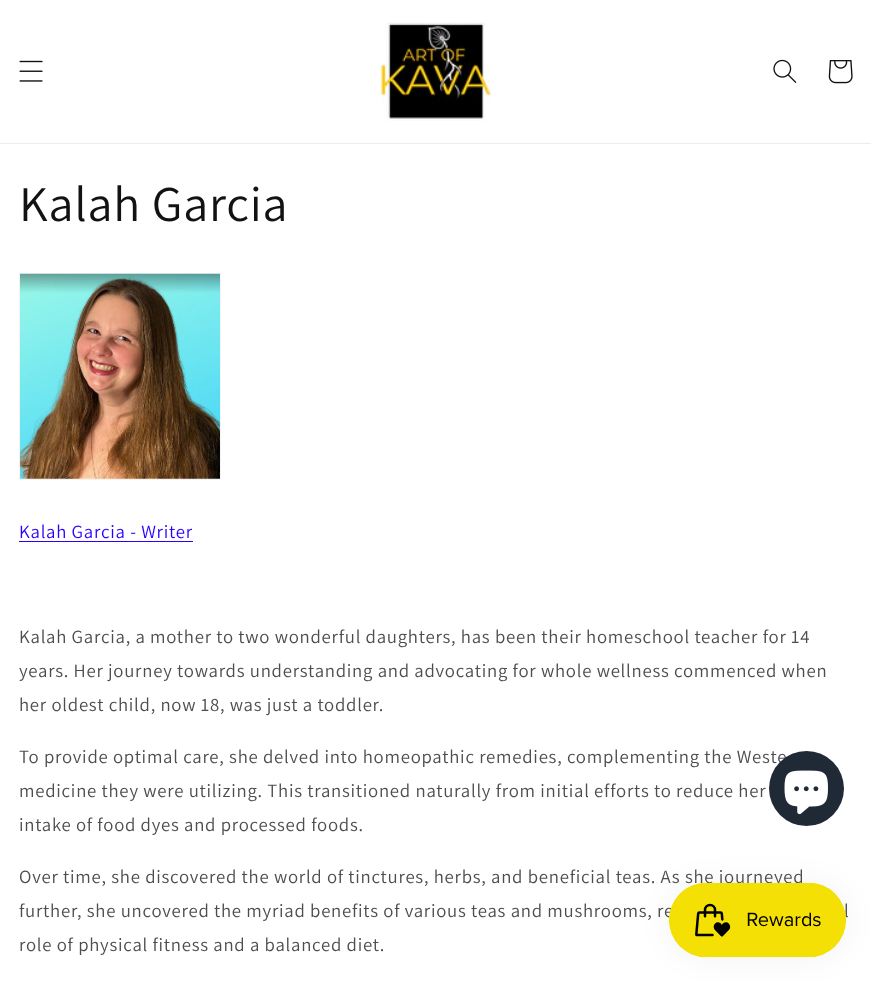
<svg xmlns="http://www.w3.org/2000/svg" width="871" height="982" viewBox="0 0 871 982">
  <defs>
    <filter id="blur1" x="-50%" y="-200%" width="200%" height="500%"><feGaussianBlur stdDeviation="15.5"/></filter>
  </defs>
  <rect width="100%" height="100%" fill="#ffffff"/>
  <rect x="0" y="143" width="871" height="1" fill="#ececec"/>
  <image x="19" y="60" width="24" height="22" href="img1.png"/>
  <image x="380" y="22" width="112" height="99" href="img2.png"/>
  <image x="773" y="59" width="24" height="24" href="img3.png"/>
  <image x="828" y="60" width="25" height="24" href="img4.png"/>
  <text x="19" y="221" font-family="Assistant" font-size="50" letter-spacing="0.75" fill="#121212">Kalah Garcia</text>
  <rect x="19.5" y="273.5" width="201" height="206" fill="none" stroke="#f3f3f3"/>
  <image x="20" y="273" width="200" height="206" href="img5.png"/>
  <text x="19" y="538" font-family="Assistant" font-size="18.75" letter-spacing="0.75" fill="#2b00ff">Kalah Garcia - Writer</text>
  <rect x="19" y="541" width="174" height="1" fill="#2b00ff"/>
  <text x="19" y="643" font-family="Assistant" font-size="18.75" letter-spacing="0.75" fill="#4d4d4d">Kalah Garcia, a mother to two wonderful daughters, has been their homeschool teacher for 14</text>
  <text x="19" y="677" font-family="Assistant" font-size="18.75" letter-spacing="0.75" fill="#4d4d4d">years. Her journey towards understanding and advocating for whole wellness commenced when</text>
  <text x="19" y="711" font-family="Assistant" font-size="18.75" letter-spacing="0.75" fill="#4d4d4d">her oldest child, now 18, was just a toddler.</text>
  <text x="19" y="763" font-family="Assistant" font-size="18.75" letter-spacing="0.75" fill="#4d4d4d">To provide optimal care, she delved into homeopathic remedies, complementing the Weste</text>
  <text x="19" y="797" font-family="Assistant" font-size="18.75" letter-spacing="0.75" fill="#4d4d4d">medicine they were utilizing. This transitioned naturally from initial efforts to reduce her</text>
  <text x="19" y="831" font-family="Assistant" font-size="18.75" letter-spacing="0.75" fill="#4d4d4d">intake of food dyes and processed foods.</text>
  <text x="19" y="883" font-family="Assistant" font-size="18.75" letter-spacing="0.75" fill="#4d4d4d">Over time, she discovered the world of tinctures, herbs, and beneficial teas. As she journeyed</text>
  <text x="19" y="917" font-family="Assistant" font-size="18.75" letter-spacing="0.75" fill="#4d4d4d">further, she uncovered the myriad benefits of various teas and mushrooms, re</text>
  <text x="844" y="917" font-family="Assistant" font-size="18.75" letter-spacing="0.75" fill="#4d4d4d">l</text>
  <text x="19" y="951" font-family="Assistant" font-size="18.75" letter-spacing="0.75" fill="#4d4d4d">role of physical fitness and a balanced diet.</text>
  <circle cx="806.5" cy="788.5" r="37.5" fill="#202a36"/>
  <image x="784" y="770" width="44" height="45" href="img6.png"/>
  <rect x="669" y="883" width="177" height="75" rx="37.5" fill="#000000" fill-opacity="0.05" filter="url(#blur1)"/>
  <image x="669" y="882" width="177" height="76" href="img7.png"/>
</svg>
